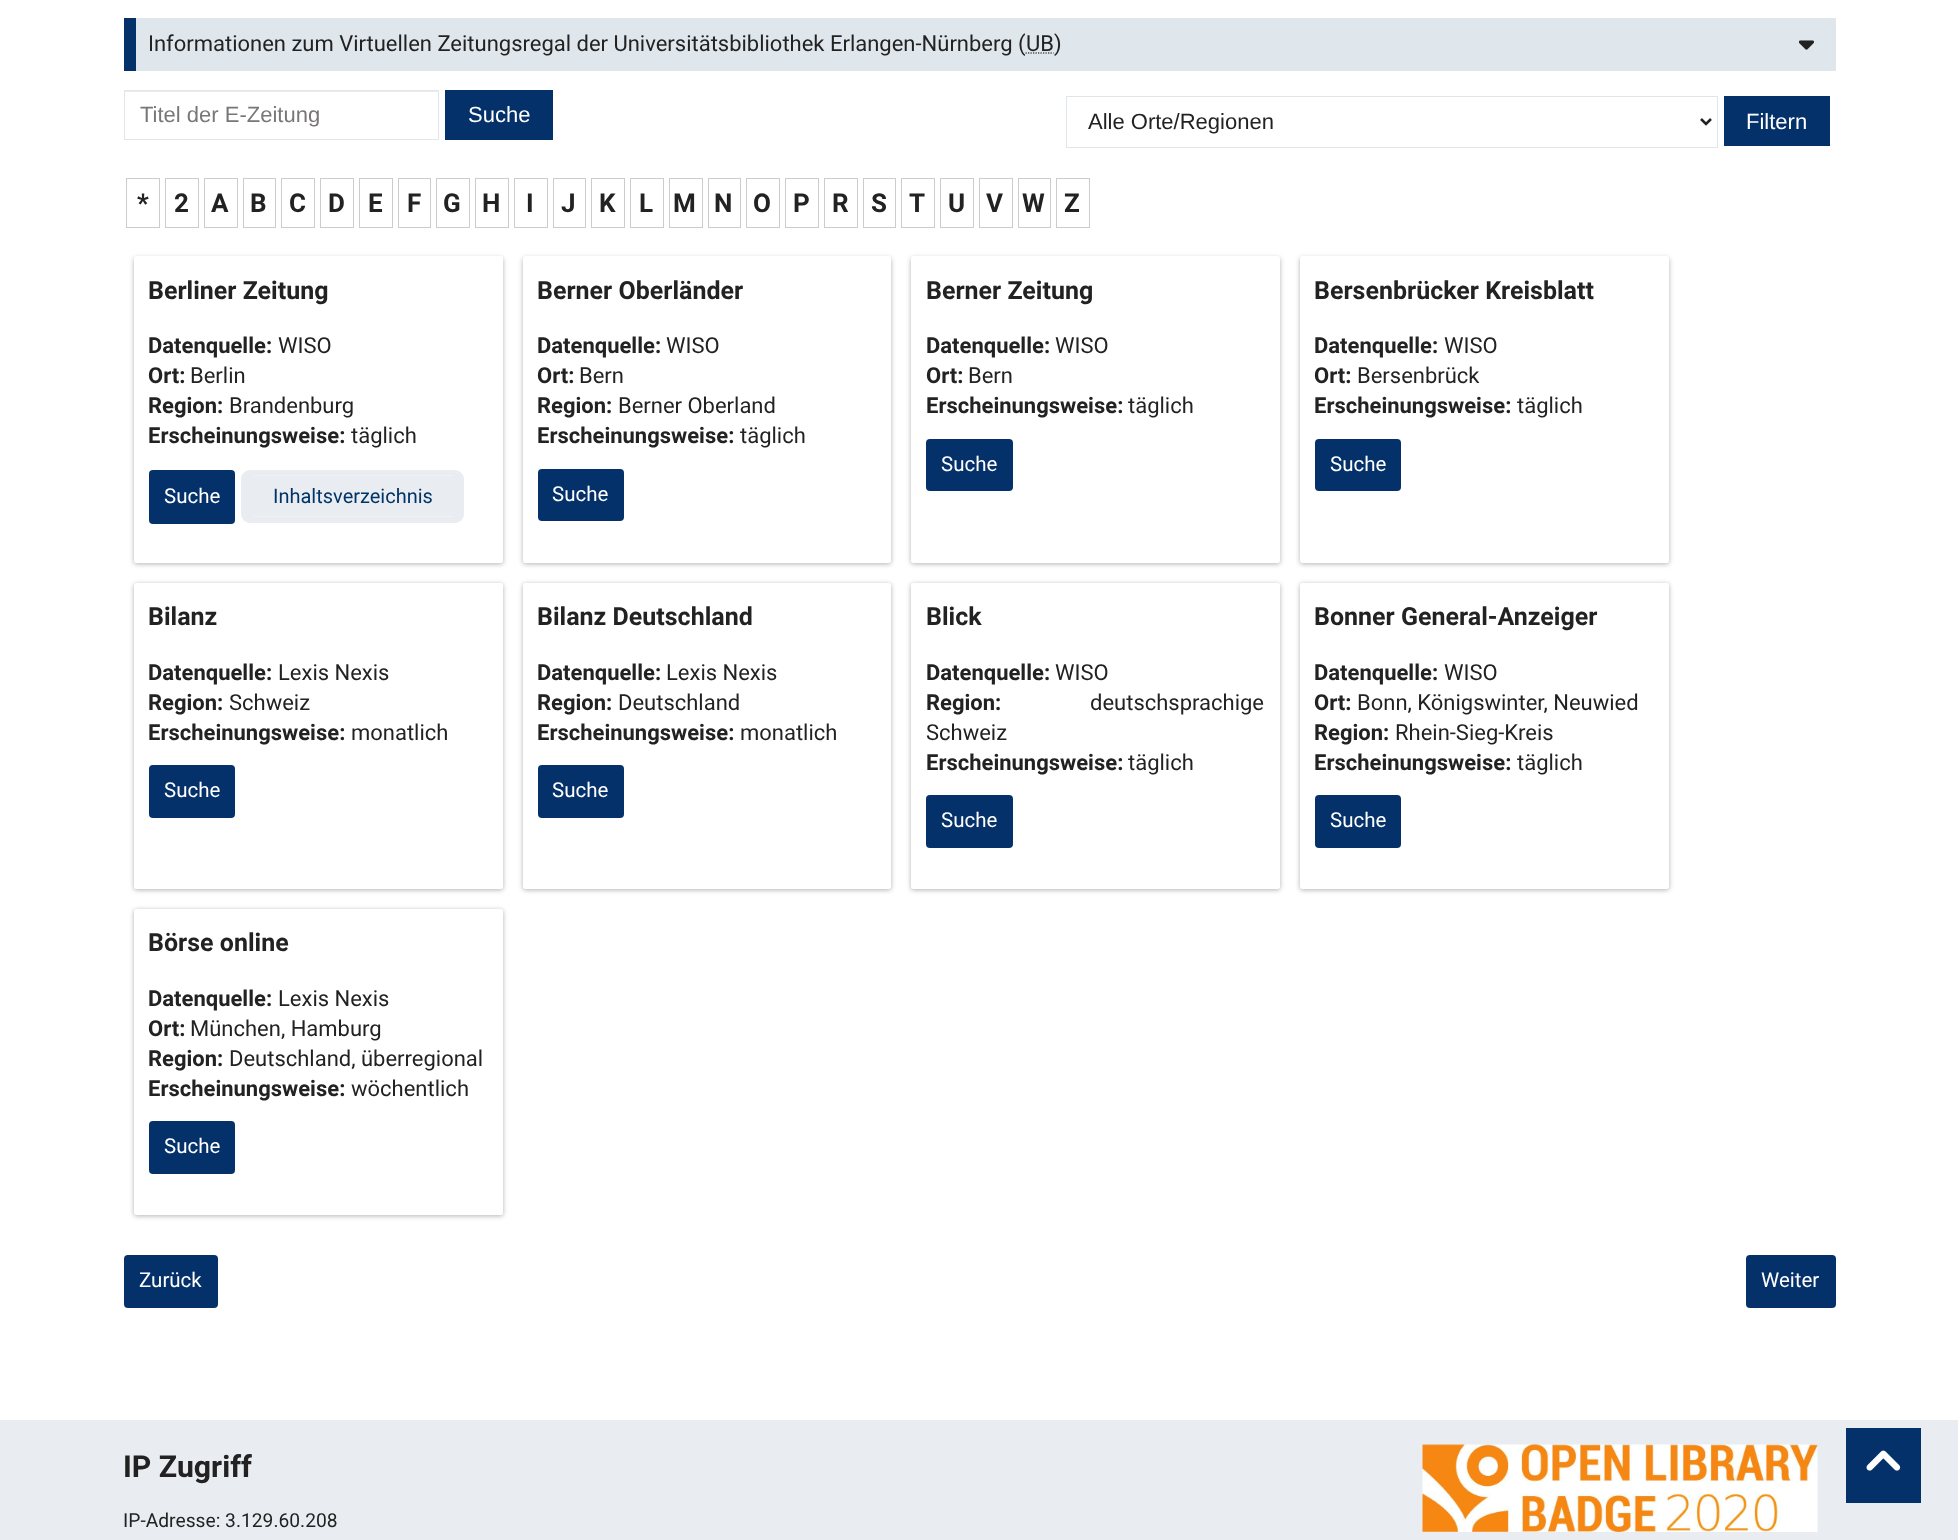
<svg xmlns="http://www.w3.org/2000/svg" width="1958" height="1540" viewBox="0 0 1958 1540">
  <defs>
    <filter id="blur1" x="-50%" y="-200%" width="200%" height="500%"><feGaussianBlur stdDeviation="2.5"/></filter>
  </defs>
  <rect width="100%" height="100%" fill="#ffffff"/>
  <rect x="136" y="18" width="1700" height="53" fill="#dfe6ec"/>
  <rect x="124" y="18" width="12" height="53" fill="#04316a"/>
  <text x="148" y="51" font-family="Roboto" font-size="22" fill="#222222">Informationen zum Virtuellen Zeitungsregal der Universitätsbibliothek Erlangen-Nürnberg (</text>
  <path d="M1025.5 53H1053.5" fill="none" stroke="#000000" stroke-width="1.2" stroke-dasharray="1.25 1.25"/>
  <text x="1026" y="51" font-family="Roboto" font-size="22" fill="#222222">UB)</text>
  <image x="1799" y="40" width="15" height="10" href="img1.png"/>
  <rect x="125" y="91" width="313" height="1" fill="#ececec"/>
  <rect x="124.5" y="90.5" width="314" height="49" fill="none" stroke="#dfe6ec"/>
  <text x="140" y="122" font-family="Liberation Sans" font-size="22" fill="#797676">Titel der E-Zeitung</text>
  <rect x="445" y="90" width="108" height="50" fill="#04316a"/>
  <text x="468" y="122" font-family="Liberation Sans" font-size="22" fill="#ffffff">Suche</text>
  <rect x="1066.5" y="96.5" width="651" height="51" fill="none" stroke="#dfe6ec"/>
  <path d="M1701 119L1706 124L1711 119" fill="none" stroke="#222222" stroke-width="2.5"/>
  <text x="1088" y="129" font-family="Liberation Sans" font-size="22" fill="#222222">Alle Orte/Regionen</text>
  <rect x="1724" y="96" width="106" height="50" fill="#04316a"/>
  <text x="1746" y="129" font-family="Liberation Sans" font-size="22" fill="#ffffff">Filtern</text>
  <rect x="126.5" y="178.5" width="33" height="49" fill="none" stroke="#cccccc"/>
  <text x="137" y="212" font-family="Roboto" font-size="26" font-weight="bold" fill="#222222">*</text>
  <rect x="165.5" y="178.5" width="33" height="49" fill="none" stroke="#cccccc"/>
  <text x="174" y="212" font-family="Roboto" font-size="26" font-weight="bold" fill="#222222">2</text>
  <rect x="204.5" y="178.5" width="33" height="49" fill="none" stroke="#cccccc"/>
  <text x="211" y="212" font-family="Roboto" font-size="26" font-weight="bold" fill="#222222">A</text>
  <rect x="243.5" y="178.5" width="32" height="49" fill="none" stroke="#cccccc"/>
  <text x="250" y="212" font-family="Roboto" font-size="26" font-weight="bold" fill="#222222">B</text>
  <rect x="281.5" y="178.5" width="33" height="49" fill="none" stroke="#cccccc"/>
  <text x="289" y="212" font-family="Roboto" font-size="26" font-weight="bold" fill="#222222">C</text>
  <rect x="320.5" y="178.5" width="33" height="49" fill="none" stroke="#cccccc"/>
  <text x="328" y="212" font-family="Roboto" font-size="26" font-weight="bold" fill="#222222">D</text>
  <rect x="359.5" y="178.5" width="33" height="49" fill="none" stroke="#cccccc"/>
  <text x="368" y="212" font-family="Roboto" font-size="26" font-weight="bold" fill="#222222">E</text>
  <rect x="398.5" y="178.5" width="32" height="49" fill="none" stroke="#cccccc"/>
  <text x="407" y="212" font-family="Roboto" font-size="26" font-weight="bold" fill="#222222">F</text>
  <rect x="436.5" y="178.5" width="33" height="49" fill="none" stroke="#cccccc"/>
  <text x="443" y="212" font-family="Roboto" font-size="26" font-weight="bold" fill="#222222">G</text>
  <rect x="475.5" y="178.5" width="33" height="49" fill="none" stroke="#cccccc"/>
  <text x="482" y="212" font-family="Roboto" font-size="26" font-weight="bold" fill="#222222">H</text>
  <rect x="514.5" y="178.5" width="33" height="49" fill="none" stroke="#cccccc"/>
  <text x="526" y="212" font-family="Roboto" font-size="26" font-weight="bold" fill="#222222">I</text>
  <rect x="553.5" y="178.5" width="32" height="49" fill="none" stroke="#cccccc"/>
  <text x="561" y="212" font-family="Roboto" font-size="26" font-weight="bold" fill="#222222">J</text>
  <rect x="591.5" y="178.5" width="33" height="49" fill="none" stroke="#cccccc"/>
  <text x="599" y="212" font-family="Roboto" font-size="26" font-weight="bold" fill="#222222">K</text>
  <rect x="630.5" y="178.5" width="33" height="49" fill="none" stroke="#cccccc"/>
  <text x="639" y="212" font-family="Roboto" font-size="26" font-weight="bold" fill="#222222">L</text>
  <rect x="669.5" y="178.5" width="33" height="49" fill="none" stroke="#cccccc"/>
  <text x="673" y="212" font-family="Roboto" font-size="26" font-weight="bold" fill="#222222">M</text>
  <rect x="708.5" y="178.5" width="32" height="49" fill="none" stroke="#cccccc"/>
  <text x="714" y="212" font-family="Roboto" font-size="26" font-weight="bold" fill="#222222">N</text>
  <rect x="746.5" y="178.5" width="33" height="49" fill="none" stroke="#cccccc"/>
  <text x="753" y="212" font-family="Roboto" font-size="26" font-weight="bold" fill="#222222">O</text>
  <rect x="785.5" y="178.5" width="33" height="49" fill="none" stroke="#cccccc"/>
  <text x="793" y="212" font-family="Roboto" font-size="26" font-weight="bold" fill="#222222">P</text>
  <rect x="824.5" y="178.5" width="33" height="49" fill="none" stroke="#cccccc"/>
  <text x="832" y="212" font-family="Roboto" font-size="26" font-weight="bold" fill="#222222">R</text>
  <rect x="863.5" y="178.5" width="32" height="49" fill="none" stroke="#cccccc"/>
  <text x="871" y="212" font-family="Roboto" font-size="26" font-weight="bold" fill="#222222">S</text>
  <rect x="901.5" y="178.5" width="33" height="49" fill="none" stroke="#cccccc"/>
  <text x="909" y="212" font-family="Roboto" font-size="26" font-weight="bold" fill="#222222">T</text>
  <rect x="940.5" y="178.5" width="33" height="49" fill="none" stroke="#cccccc"/>
  <text x="948" y="212" font-family="Roboto" font-size="26" font-weight="bold" fill="#222222">U</text>
  <rect x="979.5" y="178.5" width="33" height="49" fill="none" stroke="#cccccc"/>
  <text x="986" y="212" font-family="Roboto" font-size="26" font-weight="bold" fill="#222222">V</text>
  <rect x="1018.5" y="178.5" width="32" height="49" fill="none" stroke="#cccccc"/>
  <text x="1022" y="212" font-family="Roboto" font-size="26" font-weight="bold" fill="#222222">W</text>
  <rect x="1056.5" y="178.5" width="33" height="49" fill="none" stroke="#cccccc"/>
  <text x="1064" y="212" font-family="Roboto" font-size="26" font-weight="bold" fill="#222222">Z</text>
  <rect x="134" y="258" width="369" height="306" rx="2.5" fill="#000000" fill-opacity="0.3" filter="url(#blur1)"/>
  <rect x="134" y="256" width="369" height="307" rx="2.5" fill="#ffffff"/>
  <text x="148" y="299" font-family="Roboto" font-size="25" font-weight="bold" fill="#222222">Berliner Zeitung</text>
  <text x="148" y="353" font-family="Roboto" font-size="22" font-weight="bold" fill="#222222">Datenquelle:</text>
  <text x="278" y="353" font-family="Roboto" font-size="22" fill="#222222">WISO</text>
  <text x="148" y="383" font-family="Roboto" font-size="22" font-weight="bold" fill="#222222">Ort:</text>
  <text x="190" y="383" font-family="Roboto" font-size="22" fill="#222222">Berlin</text>
  <text x="148" y="413" font-family="Roboto" font-size="22" font-weight="bold" fill="#222222">Region:</text>
  <text x="229" y="413" font-family="Roboto" font-size="22" fill="#222222">Brandenburg</text>
  <text x="148" y="443" font-family="Roboto" font-size="22" font-weight="bold" fill="#222222">Erscheinungsweise:</text>
  <text x="351" y="443" font-family="Roboto" font-size="22" fill="#222222">täglich</text>
  <rect x="149" y="470" width="86" height="54" rx="4" fill="#04316a"/>
  <text x="164" y="503" font-family="Roboto" font-size="20.5" fill="#ffffff">Suche</text>
  <rect x="241" y="470" width="223" height="53" rx="9" fill="#e9edf2"/>
  <rect x="253" y="475" width="201" height="1" fill="#f0f3f6"/>
  <rect x="253" y="516" width="201" height="1" fill="#f0f3f6"/>
  <text x="273" y="503" font-family="Roboto" font-size="20" fill="#003366">Inhaltsverzeichnis</text>
  <rect x="523" y="258" width="368" height="306" rx="2.5" fill="#000000" fill-opacity="0.3" filter="url(#blur1)"/>
  <rect x="523" y="256" width="368" height="307" rx="2.5" fill="#ffffff"/>
  <text x="537" y="299" font-family="Roboto" font-size="25" font-weight="bold" fill="#222222">Berner Oberländer</text>
  <text x="537" y="353" font-family="Roboto" font-size="22" font-weight="bold" fill="#222222">Datenquelle:</text>
  <text x="666" y="353" font-family="Roboto" font-size="22" fill="#222222">WISO</text>
  <text x="537" y="383" font-family="Roboto" font-size="22" font-weight="bold" fill="#222222">Ort:</text>
  <text x="579" y="383" font-family="Roboto" font-size="22" fill="#222222">Bern</text>
  <text x="537" y="413" font-family="Roboto" font-size="22" font-weight="bold" fill="#222222">Region:</text>
  <text x="618" y="413" font-family="Roboto" font-size="22" fill="#222222">Berner Oberland</text>
  <text x="537" y="443" font-family="Roboto" font-size="22" font-weight="bold" fill="#222222">Erscheinungsweise:</text>
  <text x="740" y="443" font-family="Roboto" font-size="22" fill="#222222">täglich</text>
  <rect x="538" y="469" width="86" height="52" rx="4" fill="#04316a"/>
  <text x="552" y="501" font-family="Roboto" font-size="20.5" fill="#ffffff">Suche</text>
  <rect x="911" y="258" width="369" height="306" rx="2.5" fill="#000000" fill-opacity="0.3" filter="url(#blur1)"/>
  <rect x="911" y="256" width="369" height="307" rx="2.5" fill="#ffffff"/>
  <text x="926" y="299" font-family="Roboto" font-size="25" font-weight="bold" fill="#222222">Berner Zeitung</text>
  <text x="926" y="353" font-family="Roboto" font-size="22" font-weight="bold" fill="#222222">Datenquelle:</text>
  <text x="1055" y="353" font-family="Roboto" font-size="22" fill="#222222">WISO</text>
  <text x="926" y="383" font-family="Roboto" font-size="22" font-weight="bold" fill="#222222">Ort:</text>
  <text x="968" y="383" font-family="Roboto" font-size="22" fill="#222222">Bern</text>
  <text x="926" y="413" font-family="Roboto" font-size="22" font-weight="bold" fill="#222222">Erscheinungsweise:</text>
  <text x="1128" y="413" font-family="Roboto" font-size="22" fill="#222222">täglich</text>
  <rect x="926" y="439" width="87" height="52" rx="4" fill="#04316a"/>
  <text x="941" y="471" font-family="Roboto" font-size="20.5" fill="#ffffff">Suche</text>
  <rect x="1300" y="258" width="369" height="306" rx="2.5" fill="#000000" fill-opacity="0.3" filter="url(#blur1)"/>
  <rect x="1300" y="256" width="369" height="307" rx="2.5" fill="#ffffff"/>
  <text x="1314" y="299" font-family="Roboto" font-size="25" font-weight="bold" fill="#222222">Bersenbrücker Kreisblatt</text>
  <text x="1314" y="353" font-family="Roboto" font-size="22" font-weight="bold" fill="#222222">Datenquelle:</text>
  <text x="1444" y="353" font-family="Roboto" font-size="22" fill="#222222">WISO</text>
  <text x="1314" y="383" font-family="Roboto" font-size="22" font-weight="bold" fill="#222222">Ort:</text>
  <text x="1357" y="383" font-family="Roboto" font-size="22" fill="#222222">Bersenbrück</text>
  <text x="1314" y="413" font-family="Roboto" font-size="22" font-weight="bold" fill="#222222">Erscheinungsweise:</text>
  <text x="1517" y="413" font-family="Roboto" font-size="22" fill="#222222">täglich</text>
  <rect x="1315" y="439" width="86" height="52" rx="4" fill="#04316a"/>
  <text x="1330" y="471" font-family="Roboto" font-size="20.5" fill="#ffffff">Suche</text>
  <rect x="134" y="584" width="369" height="306" rx="2.5" fill="#000000" fill-opacity="0.3" filter="url(#blur1)"/>
  <rect x="134" y="583" width="369" height="306" rx="2.5" fill="#ffffff"/>
  <text x="148" y="625" font-family="Roboto" font-size="25" font-weight="bold" fill="#222222">Bilanz</text>
  <text x="148" y="680" font-family="Roboto" font-size="22" font-weight="bold" fill="#222222">Datenquelle:</text>
  <text x="278" y="680" font-family="Roboto" font-size="22" fill="#222222">Lexis Nexis</text>
  <text x="148" y="710" font-family="Roboto" font-size="22" font-weight="bold" fill="#222222">Region:</text>
  <text x="229" y="710" font-family="Roboto" font-size="22" fill="#222222">Schweiz</text>
  <text x="148" y="740" font-family="Roboto" font-size="22" font-weight="bold" fill="#222222">Erscheinungsweise:</text>
  <text x="351" y="740" font-family="Roboto" font-size="22" fill="#222222">monatlich</text>
  <rect x="149" y="765" width="86" height="53" rx="4" fill="#04316a"/>
  <text x="164" y="797" font-family="Roboto" font-size="20.5" fill="#ffffff">Suche</text>
  <rect x="523" y="584" width="368" height="306" rx="2.5" fill="#000000" fill-opacity="0.3" filter="url(#blur1)"/>
  <rect x="523" y="583" width="368" height="306" rx="2.5" fill="#ffffff"/>
  <text x="537" y="625" font-family="Roboto" font-size="25" font-weight="bold" fill="#222222">Bilanz Deutschland</text>
  <text x="537" y="680" font-family="Roboto" font-size="22" font-weight="bold" fill="#222222">Datenquelle:</text>
  <text x="666" y="680" font-family="Roboto" font-size="22" fill="#222222">Lexis Nexis</text>
  <text x="537" y="710" font-family="Roboto" font-size="22" font-weight="bold" fill="#222222">Region:</text>
  <text x="618" y="710" font-family="Roboto" font-size="22" fill="#222222">Deutschland</text>
  <text x="537" y="740" font-family="Roboto" font-size="22" font-weight="bold" fill="#222222">Erscheinungsweise:</text>
  <text x="740" y="740" font-family="Roboto" font-size="22" fill="#222222">monatlich</text>
  <rect x="538" y="765" width="86" height="53" rx="4" fill="#04316a"/>
  <text x="552" y="797" font-family="Roboto" font-size="20.5" fill="#ffffff">Suche</text>
  <rect x="911" y="584" width="369" height="306" rx="2.5" fill="#000000" fill-opacity="0.3" filter="url(#blur1)"/>
  <rect x="911" y="583" width="369" height="306" rx="2.5" fill="#ffffff"/>
  <text x="926" y="625" font-family="Roboto" font-size="25" font-weight="bold" fill="#222222">Blick</text>
  <text x="926" y="680" font-family="Roboto" font-size="22" font-weight="bold" fill="#222222">Datenquelle:</text>
  <text x="1055" y="680" font-family="Roboto" font-size="22" fill="#222222">WISO</text>
  <text x="926" y="710" font-family="Roboto" font-size="22" font-weight="bold" fill="#222222">Region:</text>
  <text x="1090" y="710" font-family="Roboto" font-size="22" fill="#222222">deutschsprachige</text>
  <text x="926" y="740" font-family="Roboto" font-size="22" fill="#222222">Schweiz</text>
  <text x="926" y="770" font-family="Roboto" font-size="22" font-weight="bold" fill="#222222">Erscheinungsweise:</text>
  <text x="1128" y="770" font-family="Roboto" font-size="22" fill="#222222">täglich</text>
  <rect x="926" y="795" width="87" height="53" rx="4" fill="#04316a"/>
  <text x="941" y="827" font-family="Roboto" font-size="20.5" fill="#ffffff">Suche</text>
  <rect x="1300" y="584" width="369" height="306" rx="2.5" fill="#000000" fill-opacity="0.3" filter="url(#blur1)"/>
  <rect x="1300" y="583" width="369" height="306" rx="2.5" fill="#ffffff"/>
  <text x="1314" y="625" font-family="Roboto" font-size="25" font-weight="bold" fill="#222222">Bonner General-Anzeiger</text>
  <text x="1314" y="680" font-family="Roboto" font-size="22" font-weight="bold" fill="#222222">Datenquelle:</text>
  <text x="1444" y="680" font-family="Roboto" font-size="22" fill="#222222">WISO</text>
  <text x="1314" y="710" font-family="Roboto" font-size="22" font-weight="bold" fill="#222222">Ort:</text>
  <text x="1357" y="710" font-family="Roboto" font-size="22" fill="#222222">Bonn, Königswinter, Neuwied</text>
  <text x="1314" y="740" font-family="Roboto" font-size="22" font-weight="bold" fill="#222222">Region:</text>
  <text x="1395" y="740" font-family="Roboto" font-size="22" fill="#222222">Rhein-Sieg-Kreis</text>
  <text x="1314" y="770" font-family="Roboto" font-size="22" font-weight="bold" fill="#222222">Erscheinungsweise:</text>
  <text x="1517" y="770" font-family="Roboto" font-size="22" fill="#222222">täglich</text>
  <rect x="1315" y="795" width="86" height="53" rx="4" fill="#04316a"/>
  <text x="1330" y="827" font-family="Roboto" font-size="20.5" fill="#ffffff">Suche</text>
  <rect x="134" y="910" width="369" height="306" rx="2.5" fill="#000000" fill-opacity="0.3" filter="url(#blur1)"/>
  <rect x="134" y="909" width="369" height="306" rx="2.5" fill="#ffffff"/>
  <text x="148" y="951" font-family="Roboto" font-size="25" font-weight="bold" fill="#222222">Börse online</text>
  <text x="148" y="1006" font-family="Roboto" font-size="22" font-weight="bold" fill="#222222">Datenquelle:</text>
  <text x="278" y="1006" font-family="Roboto" font-size="22" fill="#222222">Lexis Nexis</text>
  <text x="148" y="1036" font-family="Roboto" font-size="22" font-weight="bold" fill="#222222">Ort:</text>
  <text x="190" y="1036" font-family="Roboto" font-size="22" fill="#222222">München, Hamburg</text>
  <text x="148" y="1066" font-family="Roboto" font-size="22" font-weight="bold" fill="#222222">Region:</text>
  <text x="229" y="1066" font-family="Roboto" font-size="22" fill="#222222">Deutschland, überregional</text>
  <text x="148" y="1096" font-family="Roboto" font-size="22" font-weight="bold" fill="#222222">Erscheinungsweise:</text>
  <text x="351" y="1096" font-family="Roboto" font-size="22" fill="#222222">wöchentlich</text>
  <rect x="149" y="1121" width="86" height="53" rx="4" fill="#04316a"/>
  <text x="164" y="1153" font-family="Roboto" font-size="20.5" fill="#ffffff">Suche</text>
  <rect x="124" y="1255" width="94" height="53" rx="4" fill="#04316a"/>
  <text x="139" y="1287" font-family="Roboto" font-size="20.5" fill="#ffffff">Zurück</text>
  <rect x="1746" y="1255" width="90" height="53" rx="4" fill="#04316a"/>
  <text x="1761" y="1287" font-family="Roboto" font-size="20.5" fill="#ffffff">Weiter</text>
  <rect x="0" y="1420" width="1958" height="120" fill="#e9edf2"/>
  <text x="123" y="1477" font-family="Roboto" font-size="30.25" font-weight="bold" fill="#222222">IP Zugriff</text>
  <text x="123" y="1527" font-family="Roboto" font-size="19.25" fill="#222222">IP-Adresse: 3.129.60.208</text>
  <image x="1422" y="1444" width="396" height="88" href="img2.png"/>
  <rect x="1846" y="1428" width="75" height="75" fill="#04316a"/>
  <image x="1866" y="1450" width="35" height="21" href="img3.png"/>
</svg>
